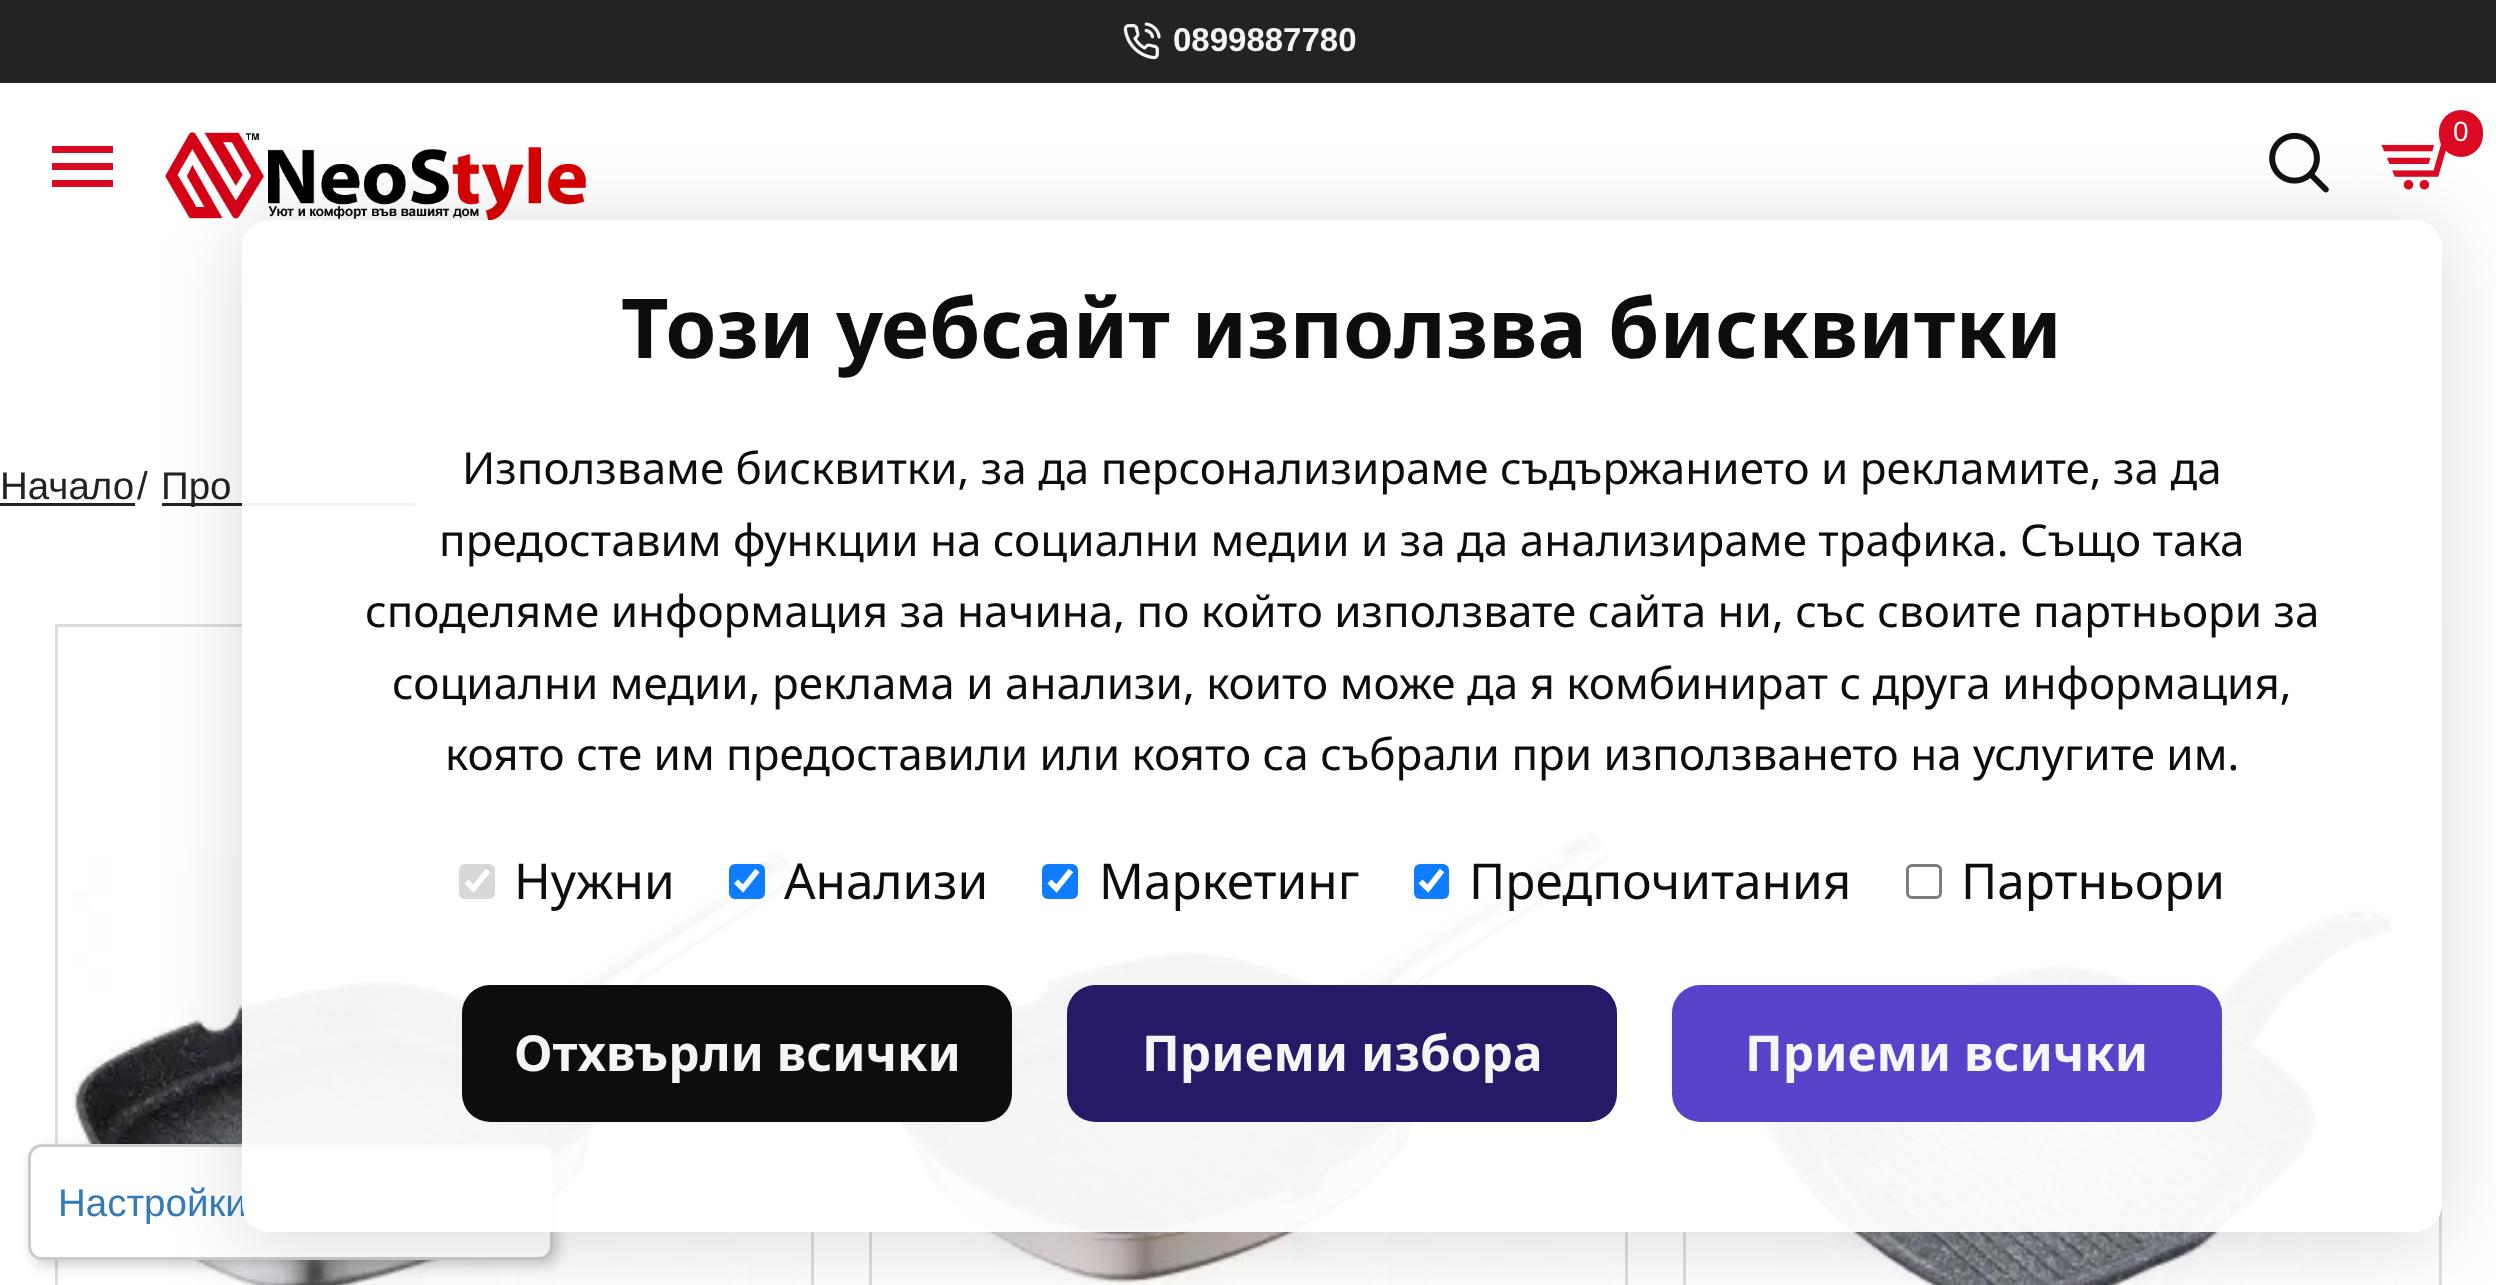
<svg xmlns="http://www.w3.org/2000/svg" width="2496" height="1285" viewBox="0 0 2496 1285">
  <defs>
    <filter id="blur1" x="-50%" y="-200%" width="200%" height="500%"><feGaussianBlur stdDeviation="7"/></filter>
    <clipPath id="clip1"><path d="M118 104H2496V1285H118ZM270 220H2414C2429.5 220 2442 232.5 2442 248V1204C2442 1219.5 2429.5 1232 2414 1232H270C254.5 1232 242 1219.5 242 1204V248C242 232.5 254.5 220 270 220Z" clip-rule="evenodd"/></clipPath>
    <filter id="blur2" x="-50%" y="-200%" width="200%" height="500%"><feGaussianBlur stdDeviation="41"/></filter>
  </defs>
  <rect width="100%" height="100%" fill="#ffffff"/>
  <rect x="0" y="0" width="2496" height="83" fill="#232323"/>
  <image x="1123" y="22" width="38" height="38" href="img1.png"/>
  <text x="1173" y="51" font-family="Liberation Sans" font-size="33" font-weight="bold" fill="#f5f5f5">0899887780</text>
  <image x="165" y="132" width="421" height="88" href="img2.png"/>
  <path d="M52 146H113V153H52ZM52 170V163H113V170ZM52 187V180H113V187Z" fill="#da0a22"/>
  <image x="2269" y="132" width="60" height="61" href="img3.png"/>
  <image x="2381" y="144" width="65" height="46" href="img4.png"/>
  <rect x="2439" y="110" width="44" height="47" rx="22" fill="#da0a22"/>
  <text x="2453" y="141" font-family="Liberation Sans" font-size="28" fill="#ffffff">0</text>
  <text x="0" y="499" font-family="Liberation Sans" font-size="38.5" fill="#222222">Начало</text>
  <rect x="0" y="503" width="135" height="3" fill="#222222"/>
  <text x="137" y="499" font-family="Liberation Sans" font-size="38.5" fill="#222222">/</text>
  <rect x="162" y="503" width="253" height="3" fill="#222222"/>
  <text x="161" y="499" font-family="Liberation Sans" font-size="38.5" fill="#222222">Про</text>
  <rect x="56.5" y="625.5" width="756" height="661" fill="none" stroke="#dddddd" stroke-width="3"/>
  <image x="72" y="853" width="726" height="432" href="img5.png"/>
  <rect x="870.5" y="625.5" width="756" height="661" fill="none" stroke="#dddddd" stroke-width="3"/>
  <image x="885" y="825" width="727" height="460" href="img6.png"/>
  <rect x="1684.5" y="625.5" width="756" height="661" fill="none" stroke="#dddddd" stroke-width="3"/>
  <image x="1757" y="902" width="641" height="383" href="img7.png"/>
  <rect x="33" y="1150" width="525" height="115" rx="14" fill="#000000" fill-opacity="0.2" filter="url(#blur1)"/>
  <rect x="29.5" y="1145.5" width="522" height="113" rx="12.5" fill="#ffffff" stroke="#cccccc" stroke-width="3"/>
  <g clip-path="url(#clip1)">
    <rect x="242" y="228" width="2200" height="1012" rx="28" fill="#000000" fill-opacity="0.15" filter="url(#blur2)"/>
  </g>
  <text x="58" y="1216" font-family="Liberation Sans" font-size="38.5" fill="#337ab7">Настройки</text>
  <rect x="242" y="220" width="2200" height="1012" rx="28" fill="#ffffff" fill-opacity="0.95"/>
  <text x="621" y="358" font-family="Noto Sans" font-size="82.5" font-weight="bold" fill="#0d0d0d">Този уебсайт използва бисквитки</text>
  <text x="462" y="484" font-family="Noto Sans" font-size="44" fill="#0d0d0d">Използваме бисквитки, за да персонализираме съдържанието и рекламите, за да</text>
  <text x="439" y="556" font-family="Noto Sans" font-size="44" fill="#0d0d0d">предоставим функции на социални медии и за да анализираме трафика. Също така</text>
  <text x="365" y="627" font-family="Noto Sans" font-size="44" fill="#0d0d0d">споделяме информация за начина, по който използвате сайта ни, със своите партньори за</text>
  <text x="392" y="699" font-family="Noto Sans" font-size="44" fill="#0d0d0d">социални медии, реклама и анализи, които може да я комбинират с друга информация,</text>
  <text x="445" y="770" font-family="Noto Sans" font-size="44" fill="#0d0d0d">която сте им предоставили или която са събрали при използването на услугите им.</text>
  <rect x="459" y="864" width="36" height="35" rx="6" fill="#d8d8d8"/>
  <path d="M466.5 881.5L473.5 888.5L488 870.5" fill="none" stroke="#ffffff" stroke-width="5.7"/>
  <text x="514" y="899" font-family="Noto Sans" font-size="49.5" fill="#0d0d0d">Нужни</text>
  <rect x="729" y="864" width="36" height="35" rx="6" fill="#0075ff" fill-opacity="0.95"/>
  <path d="M736 881.5L743 888.5L757.5 870.5" fill="none" stroke="#f3f8ff" stroke-width="5.7"/>
  <text x="784" y="899" font-family="Noto Sans" font-size="49.5" fill="#0d0d0d">Анализи</text>
  <rect x="1042" y="864" width="36" height="35" rx="6" fill="#0d7cff"/>
  <path d="M1049.5 881.5L1056.5 888.5L1071 870.5" fill="none" stroke="#ffffff" stroke-width="5.7"/>
  <text x="1099" y="899" font-family="Noto Sans" font-size="49.5" fill="#0d0d0d">Маркетинг</text>
  <rect x="1414" y="864" width="35" height="35" rx="6" fill="#0d7cff"/>
  <path d="M1420.5 881.5L1428 888.5L1442 870.5" fill="none" stroke="#ffffff" stroke-width="5.7"/>
  <text x="1469" y="899" font-family="Noto Sans" font-size="49.5" fill="#0d0d0d">Предпочитания</text>
  <rect x="1907.5" y="865.5" width="33" height="32" rx="4.5" fill="none" stroke="#7d7d7d" stroke-width="3"/>
  <text x="1961" y="899" font-family="Noto Sans" font-size="49.5" fill="#0d0d0d">Партньори</text>
  <rect x="462" y="985" width="550" height="137" rx="28" fill="#000000" fill-opacity="0.95"/>
  <text x="514" y="1071" font-family="Noto Sans" font-size="49.5" font-weight="bold" fill="#f5f5f5">Отхвърли всички</text>
  <rect x="1067" y="985" width="550" height="137" rx="28" fill="#1a0d60" fill-opacity="0.95"/>
  <text x="1142" y="1071" font-family="Noto Sans" font-size="49.5" font-weight="bold" fill="#f5f5f5">Приеми избора</text>
  <rect x="1672" y="985" width="550" height="137" rx="28" fill="#4e38c7" fill-opacity="0.95"/>
  <text x="1745" y="1071" font-family="Noto Sans" font-size="49.5" font-weight="bold" fill="#f7f6fc">Приеми всички</text>
</svg>
